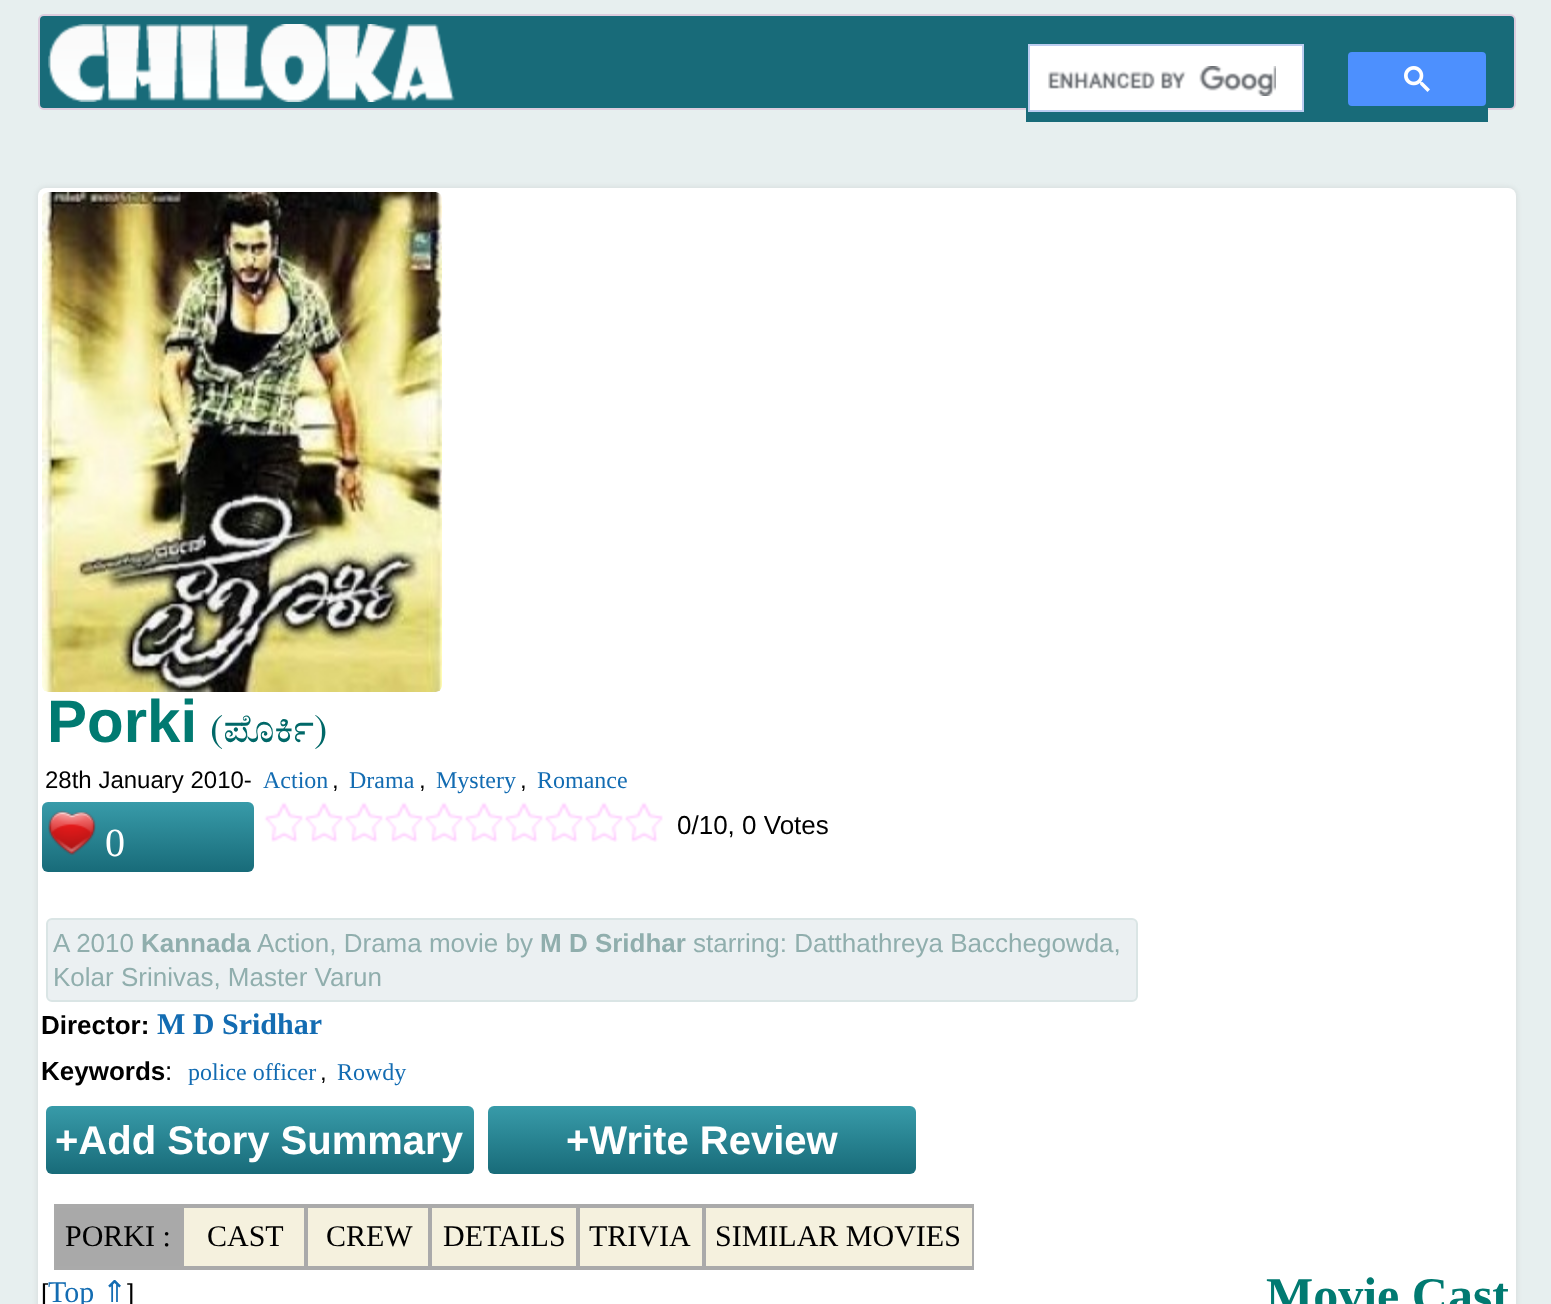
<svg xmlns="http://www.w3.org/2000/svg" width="1551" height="1304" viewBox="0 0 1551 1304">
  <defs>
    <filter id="blur1" x="-50%" y="-200%" width="200%" height="500%"><feGaussianBlur stdDeviation="2"/></filter>
    <linearGradient id="g1" gradientUnits="userSpaceOnUse" x1="148" y1="802" x2="148" y2="872"><stop offset="0" stop-color="#389ba9"/><stop offset="1" stop-color="#186b79"/></linearGradient>
    <linearGradient id="g2" gradientUnits="userSpaceOnUse" x1="260" y1="1106" x2="260" y2="1174"><stop offset="0" stop-color="#389ba9"/><stop offset="1" stop-color="#186b79"/></linearGradient>
    <linearGradient id="g3" gradientUnits="userSpaceOnUse" x1="702" y1="1106" x2="702" y2="1174"><stop offset="0" stop-color="#389ba9"/><stop offset="1" stop-color="#186b79"/></linearGradient>
  </defs>
  <rect width="100%" height="100%" fill="#e7efef"/>
  <rect x="39" y="15" width="1476" height="94" rx="5" fill="#186b79" stroke="#ddccdd" stroke-width="2"/>
  <image x="48" y="24" width="407" height="78" href="img1.png"/>
  <rect x="1026" y="108" width="462" height="14" fill="#186b79"/>
  <rect x="1029" y="45" width="274" height="66" fill="#ffffff" stroke="#bccdf0" stroke-width="2"/>
  <image x="1048" y="66" width="228" height="30" href="img2.png"/>
  <rect x="1349" y="53" width="136" height="52" rx="3" fill="#4d90fe" stroke="#4d90fe" stroke-width="2"/>
  <image x="1404" y="66" width="26" height="26" href="img3.png"/>
  <rect x="36" y="186" width="1482" height="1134" rx="10" fill="#dbe2e2" filter="url(#blur1)"/>
  <rect x="38" y="188" width="1478" height="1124" rx="8" fill="#ffffff"/>
  <image x="42" y="192" width="400" height="500" href="img4.png"/>
  <text x="47" y="742" font-family="Liberation Sans" font-size="60" font-weight="bold" fill="#017a71">Porki</text>
  <text x="210" y="742" font-family="FreeSerif" font-size="40" fill="#006868">(ಪೊರ್ಕಿ)</text>
  <text x="45" y="788" font-family="Liberation Sans" font-size="24" fill="#000000">28th January 2010-</text>
  <text x="263" y="788" font-family="Liberation Serif" font-size="24" fill="#136cb2">Action</text>
  <text x="332" y="788" font-family="Liberation Sans" font-size="24" fill="#000000">,</text>
  <text x="349" y="788" font-family="Liberation Serif" font-size="24" fill="#136cb2">Drama</text>
  <text x="419" y="788" font-family="Liberation Sans" font-size="24" fill="#000000">,</text>
  <text x="436" y="788" font-family="Liberation Serif" font-size="24" fill="#136cb2">Mystery</text>
  <text x="520" y="788" font-family="Liberation Sans" font-size="24" fill="#000000">,</text>
  <text x="537" y="788" font-family="Liberation Serif" font-size="24" fill="#136cb2">Romance</text>
  <image x="264" y="802" width="399" height="40" href="img5.png"/>
  <text x="677" y="834" font-family="Liberation Sans" font-size="26" fill="#000000">0/10, 0 Votes</text>
  <rect x="42" y="802" width="212" height="70" rx="6" fill="url(#g1)"/>
  <image x="48" y="810" width="48" height="45" href="img6.png"/>
  <text x="105" y="856" font-family="Liberation Serif" font-size="40" fill="#ffffff">0</text>
  <rect x="47" y="919" width="1090" height="82" rx="5" fill="#ebf0f2" stroke="#dae5e5" stroke-width="2"/>
  <text x="53" y="952" font-family="Liberation Sans" font-size="26" fill="#90aead">A 2010</text>
  <text x="141" y="952" font-family="Liberation Sans" font-size="26" font-weight="bold" fill="#90aead">Kannada</text>
  <text x="257" y="952" font-family="Liberation Sans" font-size="26" fill="#90aead">Action, Drama movie by</text>
  <text x="540" y="952" font-family="Liberation Sans" font-size="26" font-weight="bold" fill="#90aead">M D Sridhar</text>
  <text x="693" y="952" font-family="Liberation Sans" font-size="26" fill="#90aead">starring: Datthathreya Bacchegowda,</text>
  <text x="53" y="986" font-family="Liberation Sans" font-size="26" fill="#90aead">Kolar Srinivas, Master Varun</text>
  <text x="41" y="1034" font-family="Liberation Sans" font-size="26" font-weight="bold" fill="#000000">Director:</text>
  <text x="157" y="1034" font-family="Liberation Serif" font-size="30" font-weight="bold" fill="#136cb2">M D Sridhar</text>
  <text x="41" y="1080" font-family="Liberation Sans" font-size="26" font-weight="bold" fill="#000000">Keywords</text>
  <text x="165" y="1080" font-family="Liberation Sans" font-size="26" fill="#000000">:</text>
  <text x="188" y="1080" font-family="Liberation Serif" font-size="24" fill="#136cb2">police officer</text>
  <text x="320" y="1080" font-family="Liberation Sans" font-size="24" fill="#000000">,</text>
  <text x="337" y="1080" font-family="Liberation Serif" font-size="24" fill="#136cb2">Rowdy</text>
  <rect x="46" y="1106" width="428" height="68" rx="6" fill="url(#g2)"/>
  <text x="55" y="1154" font-family="Liberation Sans" font-size="40" font-weight="bold" fill="#ffffff">+Add Story Summary</text>
  <rect x="488" y="1106" width="428" height="68" rx="6" fill="url(#g3)"/>
  <text x="566" y="1154" font-family="Liberation Sans" font-size="40" font-weight="bold" fill="#ffffff">+Write Review</text>
  <rect x="56" y="1208" width="124" height="58" fill="#a9a9a9"/>
  <rect x="54" y="1204" width="920" height="4" fill="#aaaaaa"/>
  <rect x="180" y="1204" width="2" height="66" fill="#aaaaaa"/>
  <rect x="54" y="1266" width="128" height="4" fill="#aaaaaa"/>
  <rect x="54" y="1204" width="2" height="66" fill="#aaaaaa"/>
  <text x="65" y="1246" font-family="Liberation Serif" font-size="30" fill="#000000">PORKI :</text>
  <rect x="184" y="1208" width="120" height="58" fill="#f5f1de"/>
  <rect x="304" y="1204" width="2" height="66" fill="#aaaaaa"/>
  <rect x="182" y="1266" width="124" height="4" fill="#aaaaaa"/>
  <rect x="182" y="1204" width="2" height="66" fill="#aaaaaa"/>
  <text x="207" y="1246" font-family="Liberation Serif" font-size="30" fill="#000000">CAST</text>
  <rect x="308" y="1208" width="120" height="58" fill="#f5f1de"/>
  <rect x="428" y="1204" width="2" height="66" fill="#aaaaaa"/>
  <rect x="306" y="1266" width="124" height="4" fill="#aaaaaa"/>
  <rect x="306" y="1204" width="2" height="66" fill="#aaaaaa"/>
  <text x="326" y="1246" font-family="Liberation Serif" font-size="30" fill="#000000">CREW</text>
  <rect x="432" y="1208" width="144" height="58" fill="#f5f1de"/>
  <rect x="576" y="1204" width="2" height="66" fill="#aaaaaa"/>
  <rect x="430" y="1266" width="148" height="4" fill="#aaaaaa"/>
  <rect x="430" y="1204" width="2" height="66" fill="#aaaaaa"/>
  <text x="443" y="1246" font-family="Liberation Serif" font-size="30" fill="#000000">DETAILS</text>
  <rect x="580" y="1208" width="122" height="58" fill="#f5f1de"/>
  <rect x="702" y="1204" width="2" height="66" fill="#aaaaaa"/>
  <rect x="578" y="1266" width="126" height="4" fill="#aaaaaa"/>
  <rect x="578" y="1204" width="2" height="66" fill="#aaaaaa"/>
  <text x="589" y="1246" font-family="Liberation Serif" font-size="30" fill="#000000">TRIVIA</text>
  <rect x="706" y="1208" width="266" height="58" fill="#f5f1de"/>
  <rect x="972" y="1204" width="2" height="66" fill="#aaaaaa"/>
  <rect x="704" y="1266" width="270" height="4" fill="#aaaaaa"/>
  <rect x="704" y="1204" width="2" height="66" fill="#aaaaaa"/>
  <text x="715" y="1246" font-family="Liberation Serif" font-size="30" fill="#000000">SIMILAR MOVIES</text>
  <text x="41" y="1302" font-family="Liberation Sans" font-size="26" fill="#000000">[</text>
  <text x="48" y="1302" font-family="Liberation Serif" font-size="30" fill="#136cb2">Top</text>
  <text x="102" y="1302" font-family="DejaVu Sans" font-size="30" fill="#136cb2">⇑</text>
  <text x="127" y="1302" font-family="Liberation Sans" font-size="26" fill="#000000">]</text>
  <text x="1266" y="1312" font-family="Liberation Serif" font-size="50" font-weight="bold" fill="#017a71">Movie Cast</text>
</svg>
